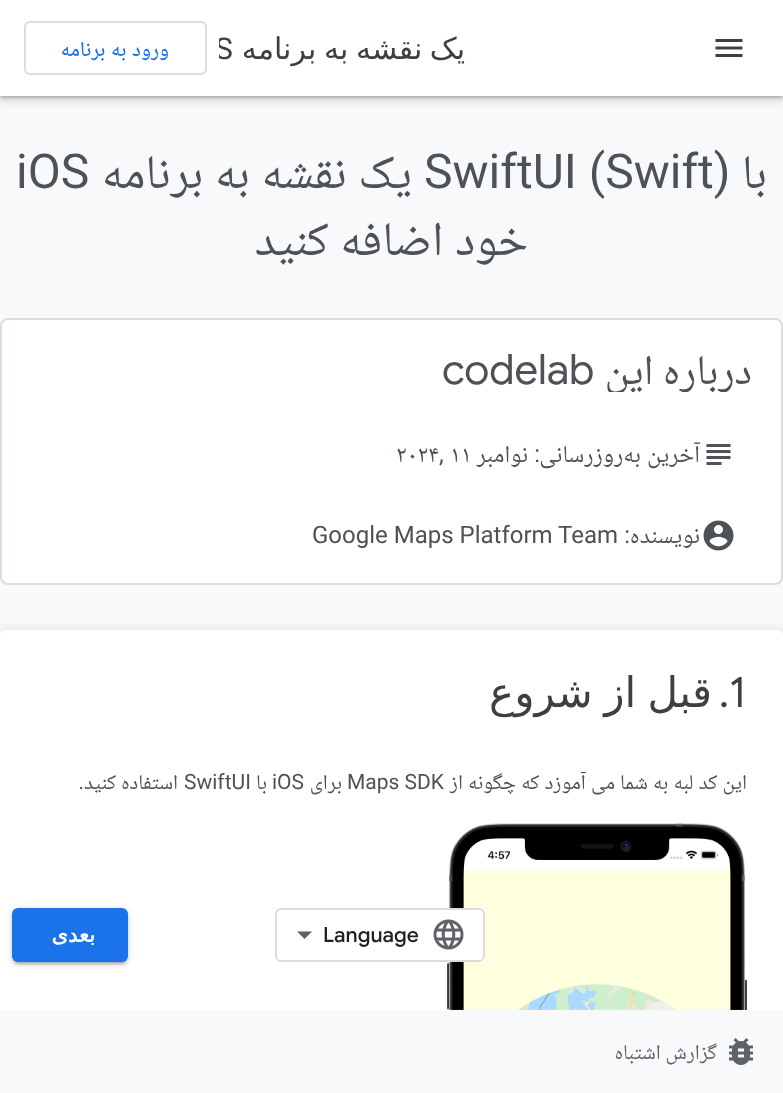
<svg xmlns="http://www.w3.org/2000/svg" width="783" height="1093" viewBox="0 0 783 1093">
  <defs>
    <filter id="blur1" x="-50%" y="-200%" width="200%" height="500%"><feGaussianBlur stdDeviation="4.5"/></filter>
    <filter id="blur2" x="-50%" y="-200%" width="200%" height="500%"><feGaussianBlur stdDeviation="1.5"/></filter>
    <clipPath id="clip1"><rect x="219" y="24" width="468" height="48"/></clipPath>
    <clipPath id="clip2"><rect x="32" y="350" width="720" height="42"/></clipPath>
    <clipPath id="clip3"><path d="M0 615H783V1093H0ZM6 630H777C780.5 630 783 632.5 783 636V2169C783 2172.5 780.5 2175 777 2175H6C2.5 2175 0 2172.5 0 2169V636C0 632.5 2.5 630 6 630Z" clip-rule="evenodd"/></clipPath>
    <filter id="blur3" x="-50%" y="-200%" width="200%" height="500%"><feGaussianBlur stdDeviation="1"/></filter>
    <filter id="blur4" x="-50%" y="-200%" width="200%" height="500%"><feGaussianBlur stdDeviation="4"/></filter>
  </defs>
  <rect width="100%" height="100%" fill="#f8f9fa"/>
  <rect x="-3" y="0" width="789" height="102" fill="#3c4043" fill-opacity="0.15" filter="url(#blur1)"/>
  <rect x="0" y="2" width="783" height="96" fill="#3c4043" fill-opacity="0.3" filter="url(#blur2)"/>
  <rect x="0" y="0" width="783" height="96" fill="#ffffff"/>
  <image x="715" y="39" width="28" height="18" href="img1.png"/>
  <text x="465" y="59" word-spacing="-2" font-family="DejaVu Sans" font-size="30" direction="rtl" fill="#3c4043">یک نقشه به برنامه</text>
  <g clip-path="url(#clip1)">
    <text x="215" y="59" font-family="Roboto" font-size="30" fill="#3c4043">S</text>
  </g>
  <rect x="25" y="22" width="181" height="52" rx="5" fill="none" stroke="#dadce0" stroke-width="2"/>
  <text x="169" y="56" word-spacing="1" font-family="Noto Naskh Arabic" font-size="21" font-weight="500" direction="rtl" fill="#1a73e8">ورود به برنامه</text>
  <text x="767" y="188" font-family="Noto Naskh Arabic" font-size="48" direction="rtl" fill="#4e5256">با</text>
  <text x="424" y="188" font-family="Roboto" font-size="48" fill="#4e5256">SwiftUI (Swift)</text>
  <text x="412" y="188" word-spacing="1" font-family="Noto Naskh Arabic" font-size="48" direction="rtl" fill="#4e5256">یک نقشه به برنامه</text>
  <text x="16" y="188" font-family="Roboto" font-size="48" fill="#4e5256">iOS</text>
  <text x="528" y="255" word-spacing="1" font-family="Noto Naskh Arabic" font-size="48" direction="rtl" fill="#4e5256">خود اضافه کنید</text>
  <rect x="1" y="319" width="781" height="265" rx="7" fill="#ffffff" stroke="#dadce0" stroke-width="2"/>
  <g clip-path="url(#clip2)">
    <text x="752" y="384" font-family="Noto Naskh Arabic" font-size="42" direction="rtl" fill="#4e5256">درباره این</text>
  </g>
  <text x="442" y="384" font-family="Google Sans" font-size="42" fill="#4e5256">codelab</text>
  <image x="706" y="444" width="25" height="21" href="img2.png"/>
  <text x="700" y="462" word-spacing="1" font-family="Noto Naskh Arabic" font-size="24" direction="rtl" fill="#4e5256">آخرین به‌روزرسانی</text>
  <text x="540" y="462" font-family="Roboto" font-size="24" direction="rtl" fill="#4e5256">:</text>
  <text x="528" y="462" font-family="Noto Naskh Arabic" font-size="24" direction="rtl" fill="#4e5256">نوامبر</text>
  <text x="450" y="462" font-family="Noto Naskh Arabic" font-size="24" fill="#4e5256">۱۱</text>
  <text x="439" y="462" font-family="Roboto" font-size="24" fill="#4e5256">,</text>
  <text x="396" y="462" font-family="Noto Naskh Arabic" font-size="24" fill="#4e5256">۲۰۲۴</text>
  <image x="703" y="520" width="31" height="31" href="img3.png"/>
  <text x="700" y="543" font-family="Noto Naskh Arabic" font-size="24" direction="rtl" fill="#4e5256">نویسنده</text>
  <text x="630" y="543" font-family="Roboto" font-size="24" direction="rtl" fill="#4e5256">:</text>
  <text x="312" y="543" font-family="Roboto" font-size="24" fill="#4e5256">Google Maps Platform Team</text>
  <image x="729" y="1038" width="24" height="27" href="img6.png"/>
  <g clip-path="url(#clip3)">
    <rect x="-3" y="630" width="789" height="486" rx="9" fill="#3c4043" fill-opacity="0.15" filter="url(#blur1)"/>
  </g>
  <path d="M6 630H777C780.5 630 783 632.5 783 636V1010H0V636C0 632.5 2.5 630 6 630Z" fill="#ffffff"/>
  <text x="729" y="707" font-family="Google Sans" font-size="42" fill="#3c4043">1</text>
  <text x="729" y="707" font-family="Google Sans" font-size="42" direction="rtl" fill="#3c4043">.</text>
  <text x="712" y="707" word-spacing="-2" font-family="DejaVu Sans" font-size="42" direction="rtl" fill="#3c4043">قبل از شروع</text>
  <text x="747" y="789" word-spacing="0.5" font-family="Noto Naskh Arabic" font-size="21" direction="rtl" fill="#4e5256">این کد لبه به شما می آموزد که چگونه از</text>
  <text x="347" y="789" font-family="Roboto" font-size="21" fill="#4e5256">Maps SDK</text>
  <text x="342" y="789" font-family="Noto Naskh Arabic" font-size="21" direction="rtl" fill="#4e5256">برای</text>
  <text x="272" y="789" font-family="Roboto" font-size="21" fill="#4e5256">iOS</text>
  <text x="267" y="789" font-family="Noto Naskh Arabic" font-size="21" direction="rtl" fill="#4e5256">با</text>
  <text x="184" y="789" font-family="Roboto" font-size="21" fill="#4e5256">SwiftUI</text>
  <text x="178" y="789" font-family="Noto Naskh Arabic" font-size="21" direction="rtl" fill="#4e5256">استفاده کنید</text>
  <text x="84" y="789" font-family="Roboto" font-size="21" direction="rtl" fill="#4e5256">.</text>
  <image x="447" y="823" width="300" height="187" href="img4.png"/>
  <rect x="447" y="908" width="38" height="54" fill="#ffffff"/>
  <rect x="276" y="909" width="208" height="52" rx="5" fill="none" stroke="#dadce0" stroke-width="2"/>
  <image x="433" y="919" width="31" height="31" href="img5.png"/>
  <text x="323" y="942" font-family="Google Sans" font-size="21" font-weight="500" fill="#202124">Language</text>
  <path d="M304.5 939L297 931.5H312Z" fill="#5f6368"/>
  <rect x="15" y="915" width="110" height="48" rx="3" fill="#000000" fill-opacity="0.2" filter="url(#blur3)"/>
  <rect x="12" y="909" width="116" height="54" rx="6" fill="#000000" fill-opacity="0.12" filter="url(#blur4)"/>
  <rect x="12" y="911" width="116" height="54" rx="6" fill="#000000" fill-opacity="0.14" filter="url(#blur2)"/>
  <rect x="12" y="908" width="116" height="54" rx="6" fill="#1a73e8"/>
  <text x="95" y="942" font-family="DejaVu Sans" font-size="21" font-weight="bold" letter-spacing="1" direction="rtl" fill="#ffffff">بعدی</text>
  <text x="717" y="1059" font-family="Noto Naskh Arabic" font-size="21" direction="rtl" fill="#5f6368">گزارش اشتباه</text>
</svg>
